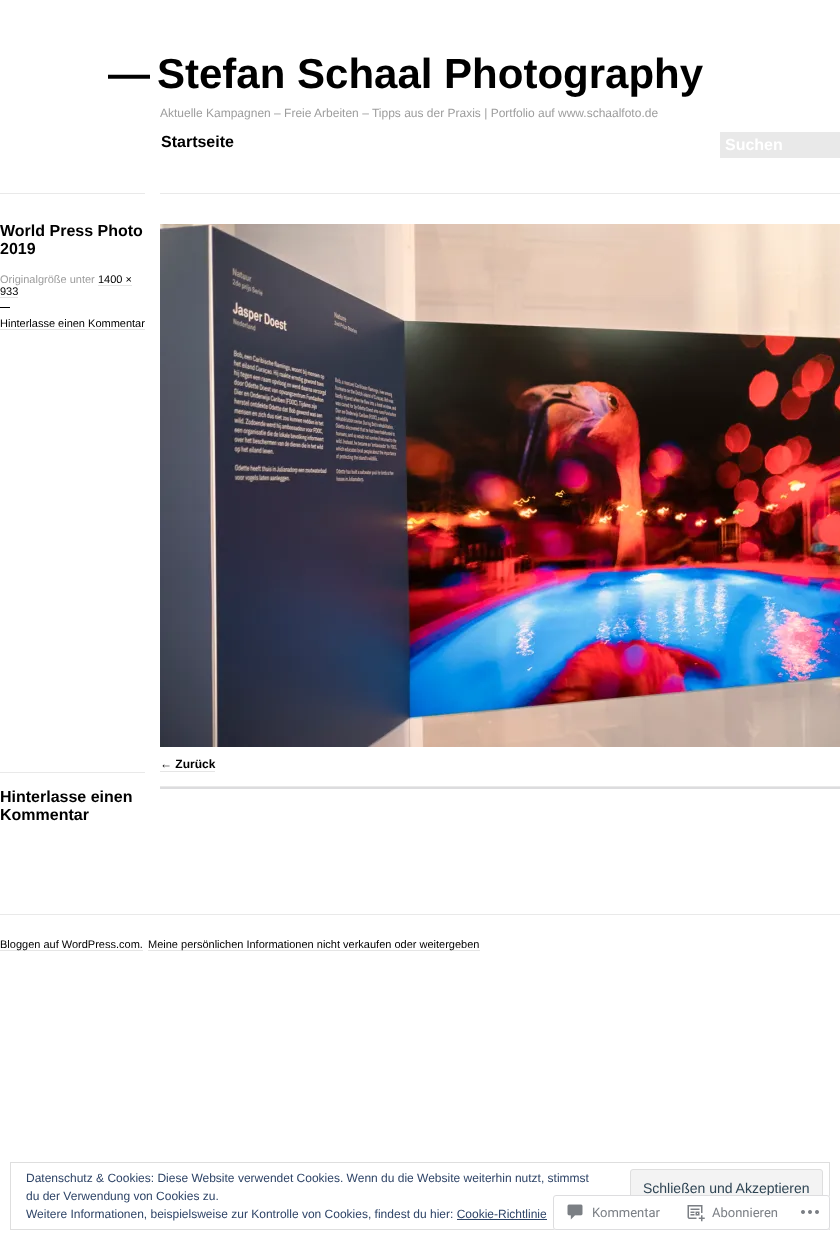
<svg xmlns="http://www.w3.org/2000/svg" width="840" height="1240" viewBox="0 0 840 1240">
  <rect width="100%" height="100%" fill="#ffffff"/>
  <text x="108" y="88" font-family="Liberation Sans" font-size="42" font-weight="bold" fill="#000000">—</text>
  <text x="157" y="88" font-family="Liberation Sans" font-size="42" font-weight="bold" fill="#000000">Stefan Schaal Photography</text>
  <text x="160" y="117" font-family="Liberation Sans" font-size="12" fill="#9d9d9d">Aktuelle Kampagnen – Freie Arbeiten – Tipps aus der Praxis | Portfolio auf www.schaalfoto.de</text>
  <text x="161" y="147" font-family="Liberation Sans" font-size="16" font-weight="bold" fill="#000000">Startseite</text>
  <rect x="720" y="132" width="120" height="26" fill="#e9e9e9"/>
  <text x="725" y="150" font-family="Liberation Sans" font-size="16" font-weight="bold" fill="#ffffff">Suchen</text>
  <rect x="0" y="193" width="145" height="1" fill="#e9e9e9"/>
  <text x="0" y="236" font-family="Liberation Sans" font-size="16" font-weight="bold" fill="#000000">World Press Photo</text>
  <text x="0" y="254" font-family="Liberation Sans" font-size="16" font-weight="bold" fill="#000000">2019</text>
  <text x="0" y="283" font-family="Liberation Sans" font-size="11" fill="#9d9d9d">Originalgröße unter</text>
  <text x="98" y="283" font-family="Liberation Sans" font-size="11" fill="#000000">1400 ×</text>
  <rect x="98" y="285" width="34" height="1" fill="#e5e5e5"/>
  <text x="0" y="295" font-family="Liberation Sans" font-size="11" fill="#000000">933</text>
  <rect x="0" y="297" width="18" height="1" fill="#e5e5e5"/>
  <rect x="0" y="307" width="10" height="1" fill="#000000"/>
  <text x="0" y="327" font-family="Liberation Sans" font-size="11" fill="#000000">Hinterlasse einen Kommentar</text>
  <rect x="0" y="329" width="145" height="1" fill="#e5e5e5"/>
  <rect x="160" y="193" width="680" height="1" fill="#e9e9e9"/>
  <image x="160" y="224" width="680" height="523" href="img1.png"/>
  <text x="160" y="768" font-family="Liberation Sans" font-size="12" font-weight="bold" fill="#000000">← Zurück</text>
  <rect x="160" y="771" width="55" height="1" fill="#e5e5e5"/>
  <rect x="160" y="786" width="680" height="1" fill="#e9e9e9"/>
  <rect x="160" y="787" width="680" height="2" fill="#dcdcde"/>
  <rect x="0" y="772" width="145" height="1" fill="#e9e9e9"/>
  <text x="0" y="802" font-family="Liberation Sans" font-size="16" font-weight="bold" fill="#000000">Hinterlasse einen</text>
  <text x="0" y="820" font-family="Liberation Sans" font-size="16" font-weight="bold" fill="#000000">Kommentar</text>
  <rect x="0" y="914" width="840" height="1" fill="#e9e9e9"/>
  <rect x="0" y="950" width="143" height="1" fill="#e5e5e5"/>
  <text x="0" y="948" font-family="Liberation Sans" font-size="11" fill="#000000">Bloggen auf WordPress.com.</text>
  <rect x="148" y="950" width="332" height="1" fill="#e5e5e5"/>
  <text x="148" y="948" font-family="Liberation Sans" font-size="11" fill="#000000">Meine persönlichen Informationen nicht verkaufen oder weitergeben</text>
  <rect x="10.5" y="1162.5" width="819" height="67" fill="none" stroke="#dedede"/>
  <text x="26" y="1182" font-family="Liberation Sans" font-size="12" fill="#2e4467">Datenschutz &amp; Cookies: Diese Website verwendet Cookies. Wenn du die Website weiterhin nutzt, stimmst</text>
  <text x="26" y="1200" font-family="Liberation Sans" font-size="12" fill="#2e4467">du der Verwendung von Cookies zu.</text>
  <rect x="630.5" y="1169.5" width="192" height="38" rx="2.5" fill="#f3f3f3" stroke="#dedede"/>
  <text x="643" y="1193" font-family="Liberation Sans" font-size="14" fill="#2e4453">Schließen und Akzeptieren</text>
  <text x="26" y="1218" font-family="Liberation Sans" font-size="12" fill="#2e4467">Weitere Informationen, beispielsweise zur Kontrolle von Cookies, findest du hier: Cookie-Richtlinie</text>
  <rect x="457" y="1219" width="90" height="1" fill="#2e4467"/>
  <rect x="553" y="1195" width="277" height="35" rx="3" fill="#ffffff" fill-opacity="0.98"/>
  <rect x="553.5" y="1195.5" width="276" height="34" rx="2.5" fill="none" stroke="#dcdcde" stroke-opacity="0.98"/>
  <image x="567" y="1204" width="16" height="16" href="img2.png"/>
  <text x="592" y="1217" font-family="Roboto" font-size="13" fill="#7b7f85">Kommentar</text>
  <image x="687" y="1205" width="18" height="17" href="img3.png"/>
  <text x="712" y="1217" font-family="Roboto" font-size="13" fill="#7b7f85">Abonnieren</text>
  <image x="801" y="1210" width="18" height="4" href="img4.png"/>
</svg>
